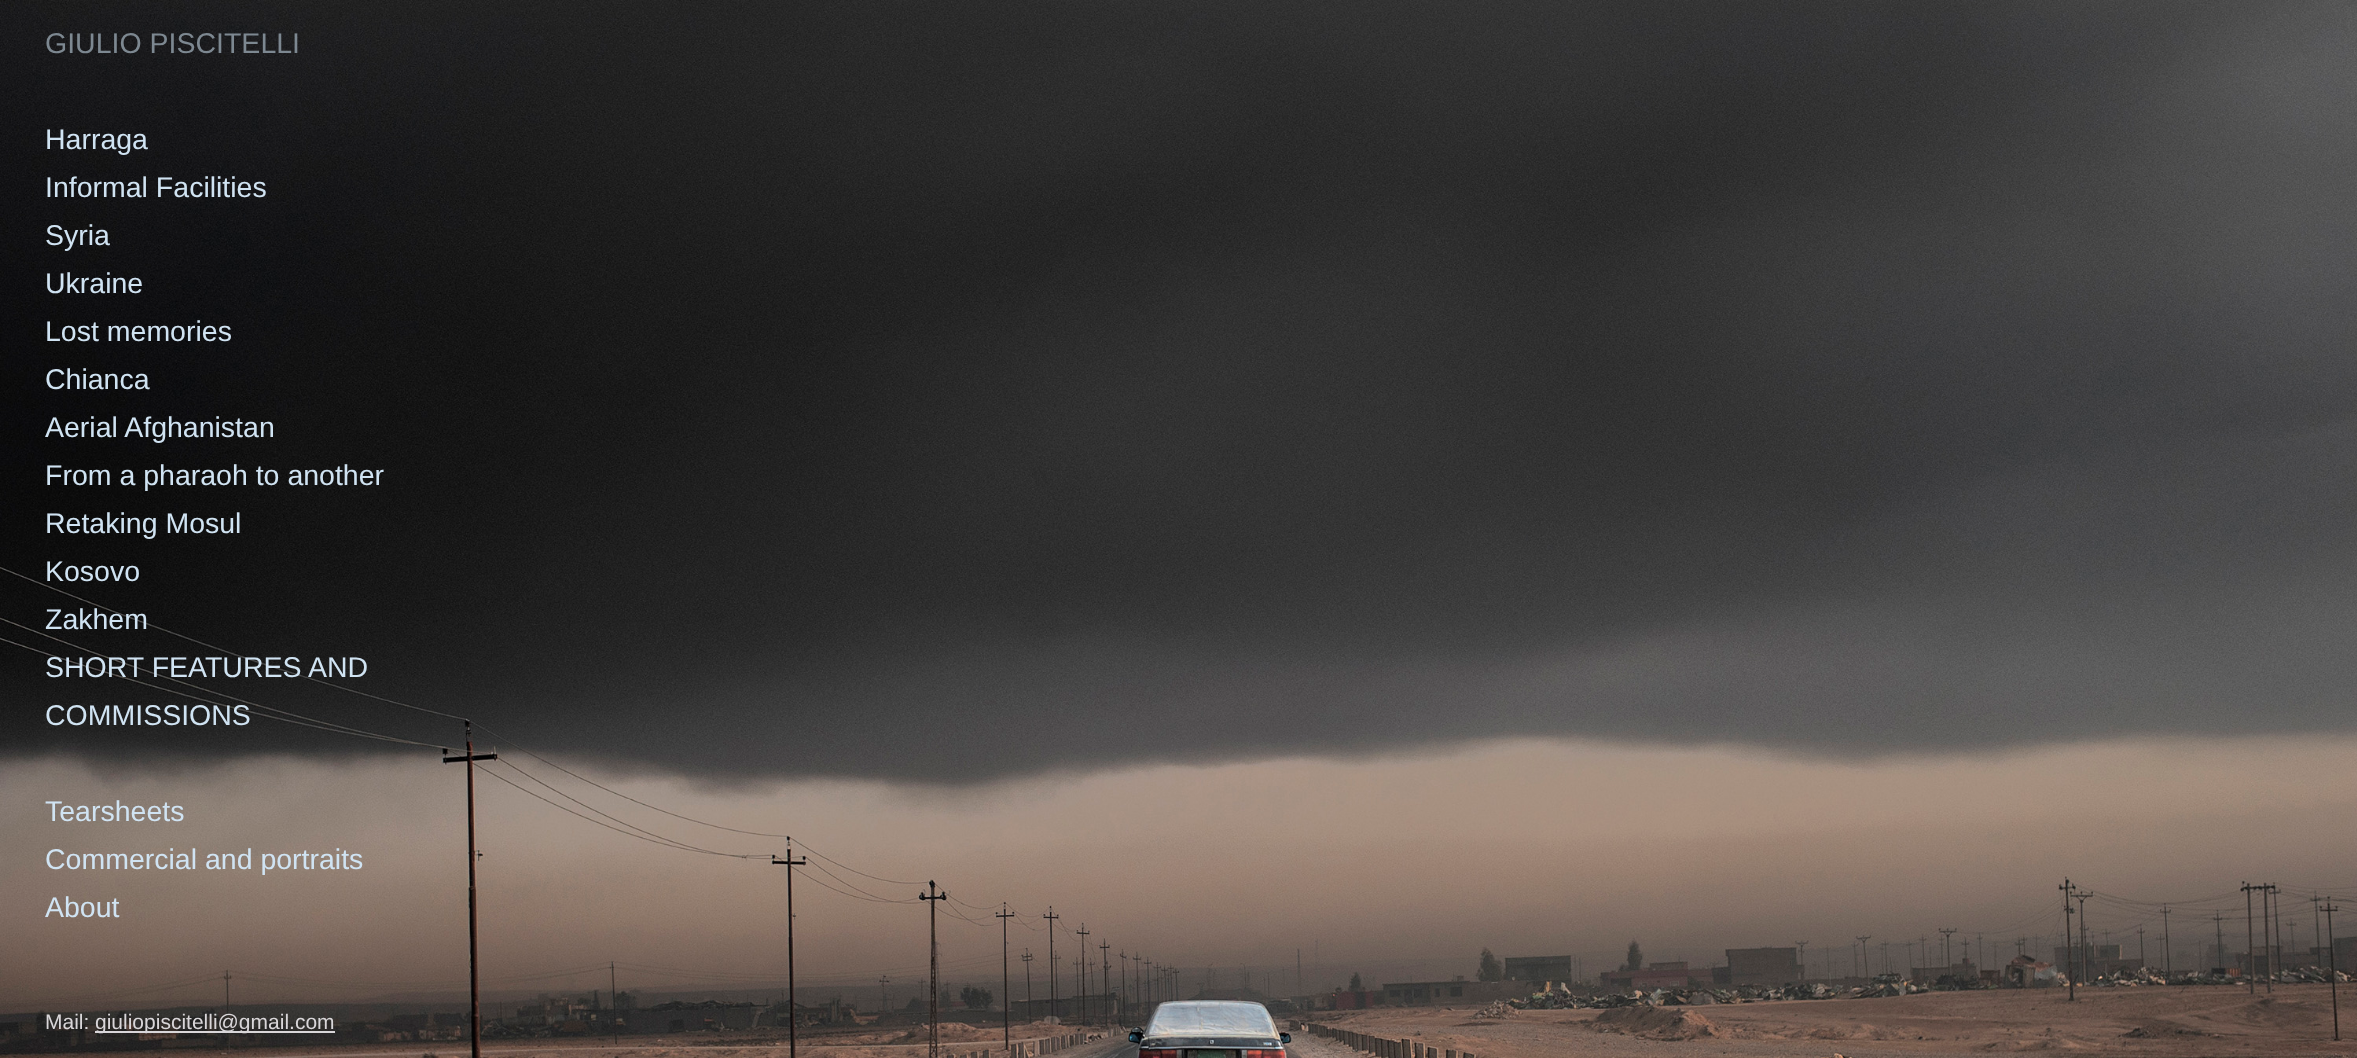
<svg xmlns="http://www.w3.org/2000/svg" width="2357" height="1058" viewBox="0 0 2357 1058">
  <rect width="100%" height="100%" fill="#ffffff"/>
  <image x="0" y="0" width="2357" height="1058" href="img1.png"/>
  <text x="45" y="53" font-family="Liberation Sans" font-size="28.5" fill="#7d8891">GIULIO PISCITELLI</text>
  <text x="45" y="149" font-family="Liberation Sans" font-size="28.5" fill="#d0e3f2">Harraga</text>
  <text x="45" y="197" font-family="Liberation Sans" font-size="28.5" fill="#d0e3f2">Informal Facilities</text>
  <text x="45" y="245" font-family="Liberation Sans" font-size="28.5" fill="#d0e3f2">Syria</text>
  <text x="45" y="293" font-family="Liberation Sans" font-size="28.5" fill="#d0e3f2">Ukraine</text>
  <text x="45" y="341" font-family="Liberation Sans" font-size="28.5" fill="#d0e3f2">Lost memories</text>
  <text x="45" y="389" font-family="Liberation Sans" font-size="28.5" fill="#d0e3f2">Chianca</text>
  <text x="45" y="437" font-family="Liberation Sans" font-size="28.5" fill="#d0e3f2">Aerial Afghanistan</text>
  <text x="45" y="485" font-family="Liberation Sans" font-size="28.5" fill="#d0e3f2">From a pharaoh to another</text>
  <text x="45" y="533" font-family="Liberation Sans" font-size="28.5" fill="#d0e3f2">Retaking Mosul</text>
  <text x="45" y="581" font-family="Liberation Sans" font-size="28.5" fill="#d0e3f2">Kosovo</text>
  <text x="45" y="629" font-family="Liberation Sans" font-size="28.5" fill="#d0e3f2">Zakhem</text>
  <text x="45" y="677" font-family="Liberation Sans" font-size="28.5" fill="#d0e3f2">SHORT FEATURES AND</text>
  <text x="45" y="725" font-family="Liberation Sans" font-size="28.5" fill="#d0e3f2">COMMISSIONS</text>
  <text x="45" y="821" font-family="Liberation Sans" font-size="28.5" fill="#d0e3f2">Tearsheets</text>
  <text x="45" y="869" font-family="Liberation Sans" font-size="28.5" fill="#d0e3f2">Commercial and portraits</text>
  <text x="45" y="917" font-family="Liberation Sans" font-size="28.5" fill="#d0e3f2">About</text>
  <text x="45" y="1029" font-family="Liberation Sans" font-size="21" fill="#d9d6d9">Mail:</text>
  <rect x="95" y="1031" width="240" height="2" fill="#d9d6d9"/>
  <text x="95" y="1029" font-family="Liberation Sans" font-size="21" fill="#d9d6d9">giuliopiscitelli@gmail.com</text>
</svg>
